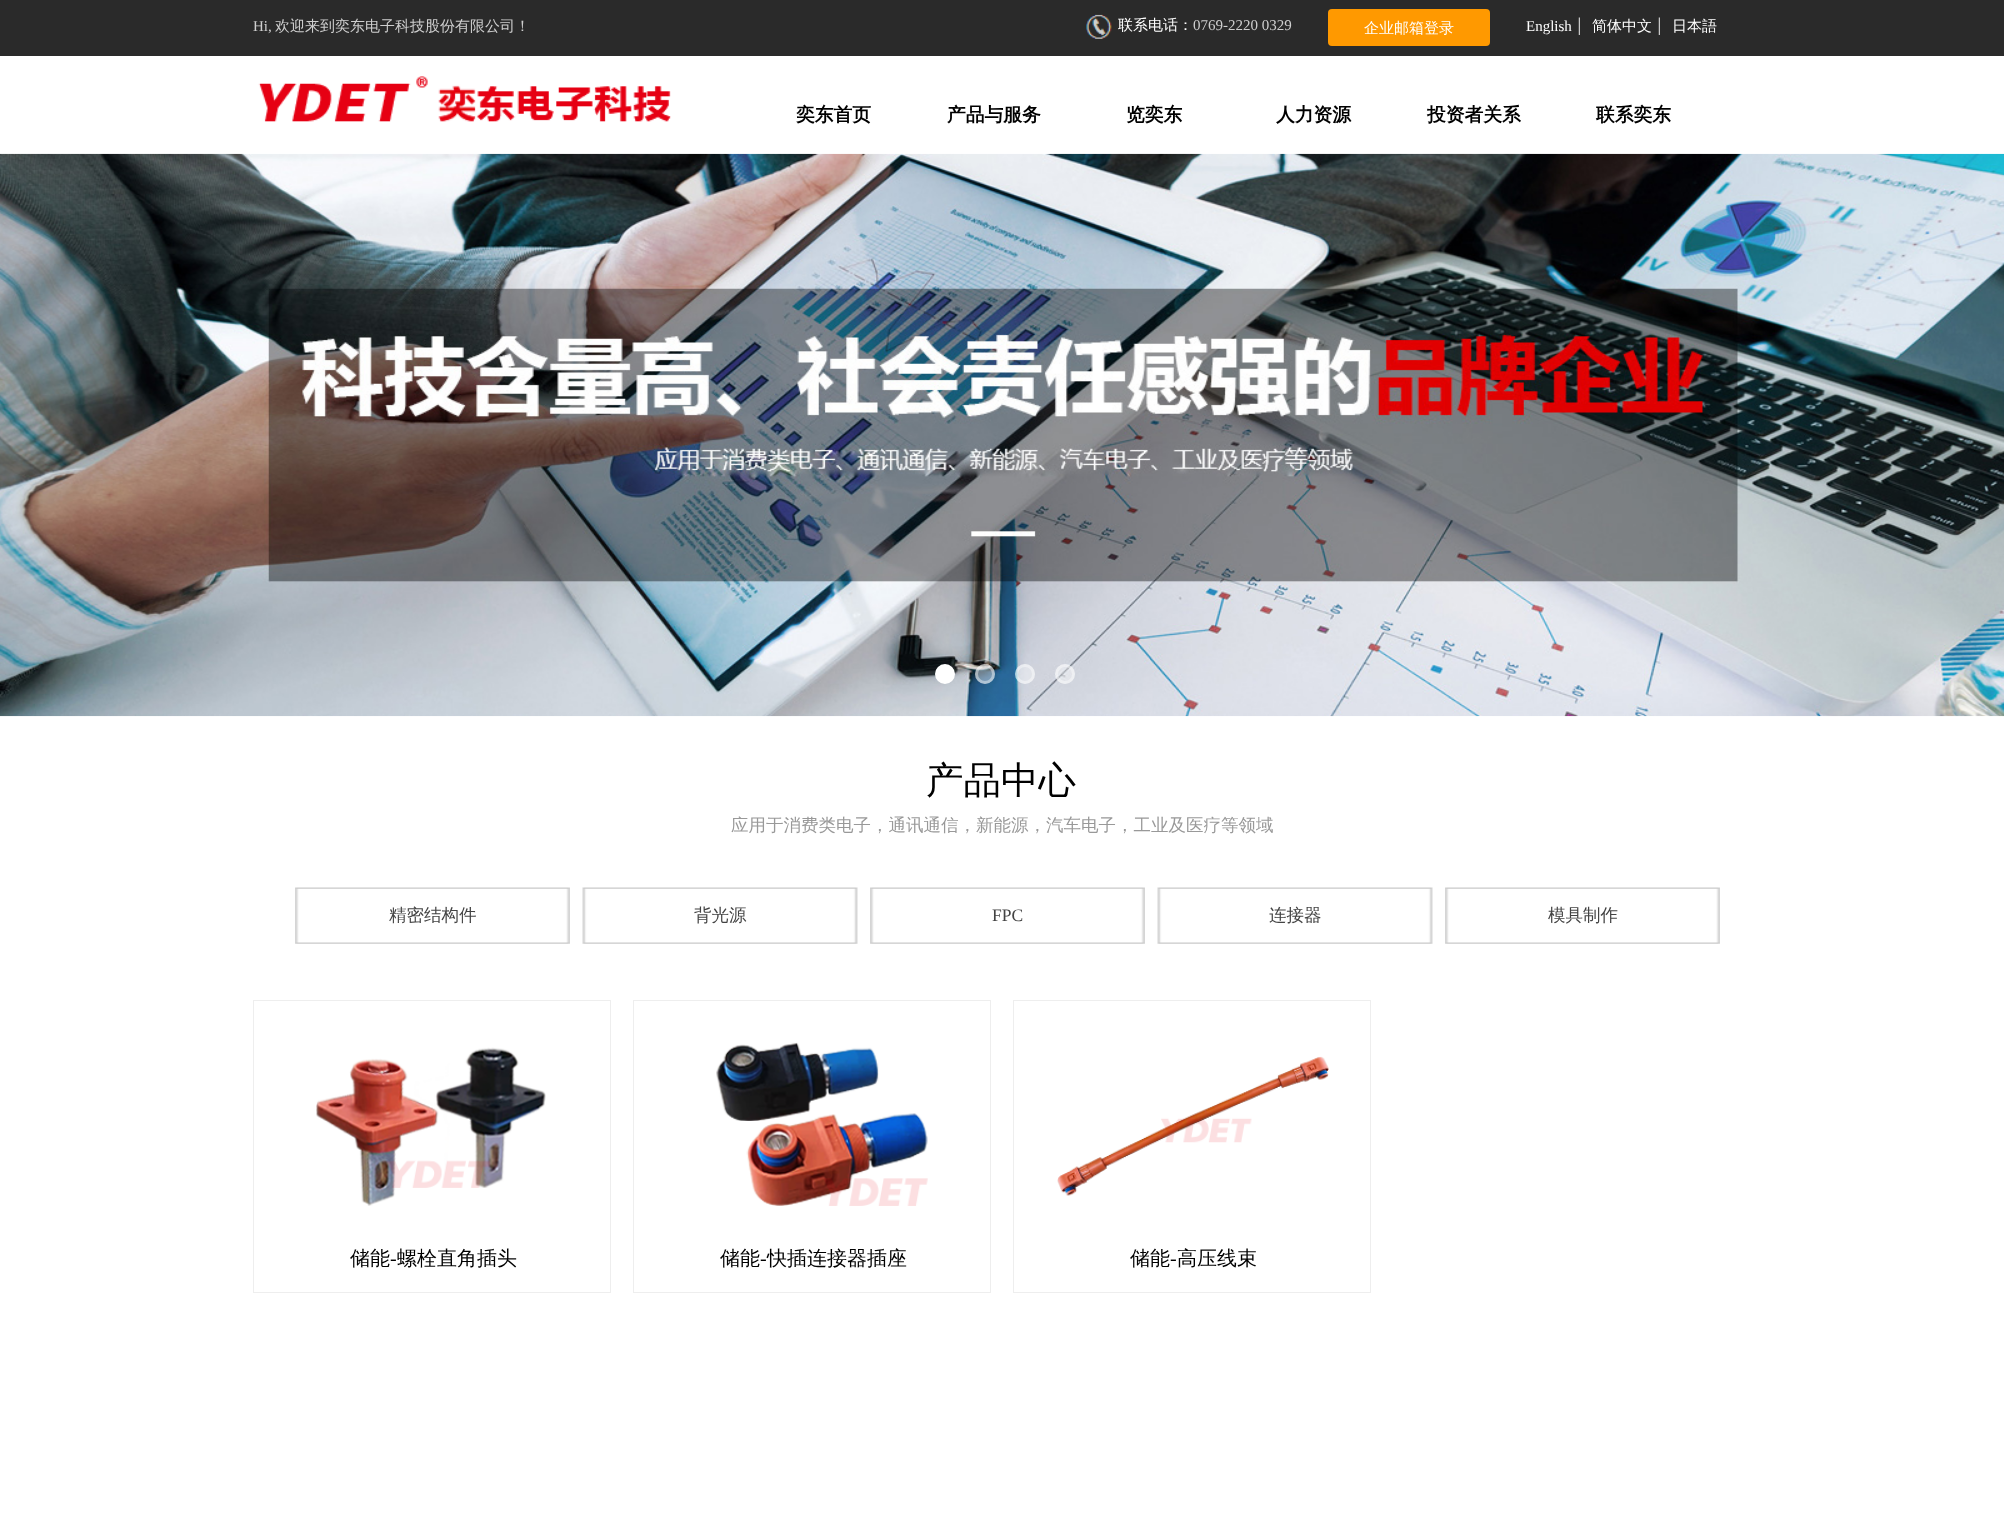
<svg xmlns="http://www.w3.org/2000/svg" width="2004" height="1539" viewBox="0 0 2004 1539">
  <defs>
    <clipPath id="clip1"><rect x="1118" y="15" width="210" height="23"/></clipPath>
  </defs>
  <rect width="100%" height="100%" fill="#ffffff"/>
  <rect x="0" y="0" width="2004" height="56" fill="#2a2a2a"/>
  <text x="253" y="31" font-family="Liberation Serif" font-size="15" fill="#cecece">Hi,</text>
  <text x="275" y="31" font-family="WenQuanYi Zen Hei" font-size="15" font-weight="500" fill="#cecece">欢迎来到奕东电子科技股份有限公司！</text>
  <image x="1086" y="14" width="26" height="25" href="img1.png"/>
  <g clip-path="url(#clip1)">
    <text x="1118" y="30" font-family="WenQuanYi Zen Hei" font-size="15" font-weight="500" fill="#ffffff">联系电话：</text>
  </g>
  <text x="1193" y="30" font-family="Liberation Serif" font-size="15" fill="#cecece">0769-2220 0329</text>
  <rect x="1328" y="9" width="162" height="37" rx="4" fill="#ff9900"/>
  <text x="1364" y="33" font-family="WenQuanYi Zen Hei" font-size="15" font-weight="500" fill="#ffffff">企业邮箱登录</text>
  <image x="1578" y="17" width="2" height="18" href="img2.png"/>
  <text x="1526" y="31" font-family="Liberation Serif" font-size="15" fill="#ffffff">English</text>
  <image x="1658" y="17" width="2" height="18" href="img2.png"/>
  <text x="1592" y="31" font-family="WenQuanYi Zen Hei" font-size="15" font-weight="500" fill="#ffffff">简体中文</text>
  <text x="1672" y="31" font-family="WenQuanYi Zen Hei" font-size="15" font-weight="500" fill="#ffffff">日本語</text>
  <image x="258" y="76" width="413" height="46" href="img3.png"/>
  <text x="796" y="121" font-family="WenQuanYi Zen Hei" font-size="18.75" font-weight="bold" fill="#000000">奕东首页</text>
  <text x="947" y="121" font-family="WenQuanYi Zen Hei" font-size="18.75" font-weight="bold" fill="#000000">产品与服务</text>
  <text x="1126" y="121" font-family="WenQuanYi Zen Hei" font-size="18.75" font-weight="bold" fill="#000000">览奕东</text>
  <text x="1276" y="121" font-family="WenQuanYi Zen Hei" font-size="18.75" font-weight="bold" fill="#000000">人力资源</text>
  <text x="1427" y="121" font-family="WenQuanYi Zen Hei" font-size="18.75" font-weight="bold" fill="#000000">投资者关系</text>
  <text x="1596" y="121" font-family="WenQuanYi Zen Hei" font-size="18.75" font-weight="bold" fill="#000000">联系奕东</text>
  <image x="0" y="153" width="2004" height="564" href="img4.png"/>
  <circle cx="945" cy="674" r="8.5" fill="#ffffff" stroke="#ffffff" stroke-width="3"/>
  <circle cx="985" cy="674" r="10" fill="#ffffff" fill-opacity="0.4"/>
  <circle cx="985" cy="674" r="8.5" fill="none" stroke="#ffffff" stroke-opacity="0.4" stroke-width="3"/>
  <circle cx="1025" cy="674" r="10" fill="#ffffff" fill-opacity="0.4"/>
  <circle cx="1025" cy="674" r="8.5" fill="none" stroke="#ffffff" stroke-opacity="0.4" stroke-width="3"/>
  <circle cx="1065" cy="674" r="10" fill="#ffffff" fill-opacity="0.4"/>
  <circle cx="1065" cy="674" r="8.5" fill="none" stroke="#ffffff" stroke-opacity="0.4" stroke-width="3"/>
  <text x="926" y="793" font-family="WenQuanYi Zen Hei" font-size="37.5" font-weight="500" fill="#000000">产品中心</text>
  <text x="731" y="831" font-family="WenQuanYi Zen Hei" font-size="17.5" font-weight="500" fill="#999999">应用于消费类电子，通讯通信，新能源，汽车电子，工业及医疗等领域</text>
  <image x="295" y="887" width="275" height="57" href="img5.png"/>
  <text x="389" y="921" font-family="WenQuanYi Zen Hei" font-size="17.5" font-weight="500" fill="#434343">精密结构件</text>
  <image x="582" y="887" width="276" height="57" href="img6.png"/>
  <text x="694" y="921" font-family="WenQuanYi Zen Hei" font-size="17.5" font-weight="500" fill="#434343">背光源</text>
  <image x="870" y="887" width="275" height="57" href="img5.png"/>
  <text x="992" y="921" font-family="Liberation Serif" font-size="17.5" fill="#434343">FPC</text>
  <image x="1157" y="887" width="276" height="57" href="img6.png"/>
  <text x="1269" y="921" font-family="WenQuanYi Zen Hei" font-size="17.5" font-weight="500" fill="#434343">连接器</text>
  <image x="1445" y="887" width="275" height="57" href="img7.png"/>
  <text x="1548" y="921" font-family="WenQuanYi Zen Hei" font-size="17.5" font-weight="500" fill="#434343">模具制作</text>
  <rect x="253.5" y="1000.5" width="357" height="292" fill="none" stroke="#eeeeee"/>
  <image x="316" y="1047" width="230" height="159" href="img8.png"/>
  <text x="350" y="1265" font-family="WenQuanYi Zen Hei" font-size="20" font-weight="500" fill="#000000">储能</text>
  <text x="390" y="1265" font-family="Liberation Serif" font-size="20" fill="#000000">-</text>
  <text x="397" y="1265" font-family="WenQuanYi Zen Hei" font-size="20" font-weight="500" fill="#000000">螺栓直角插头</text>
  <rect x="633.5" y="1000.5" width="357" height="292" fill="none" stroke="#eeeeee"/>
  <image x="716" y="1042" width="212" height="164" href="img9.png"/>
  <text x="720" y="1265" font-family="WenQuanYi Zen Hei" font-size="20" font-weight="500" fill="#000000">储能</text>
  <text x="760" y="1265" font-family="Liberation Serif" font-size="20" fill="#000000">-</text>
  <text x="767" y="1265" font-family="WenQuanYi Zen Hei" font-size="20" font-weight="500" fill="#000000">快插连接器插座</text>
  <rect x="1013.5" y="1000.5" width="357" height="292" fill="none" stroke="#eeeeee"/>
  <image x="1057" y="1056" width="272" height="140" href="img10.png"/>
  <text x="1130" y="1265" font-family="WenQuanYi Zen Hei" font-size="20" font-weight="500" fill="#000000">储能</text>
  <text x="1170" y="1265" font-family="Liberation Serif" font-size="20" fill="#000000">-</text>
  <text x="1177" y="1265" font-family="WenQuanYi Zen Hei" font-size="20" font-weight="500" fill="#000000">高压线束</text>
</svg>
